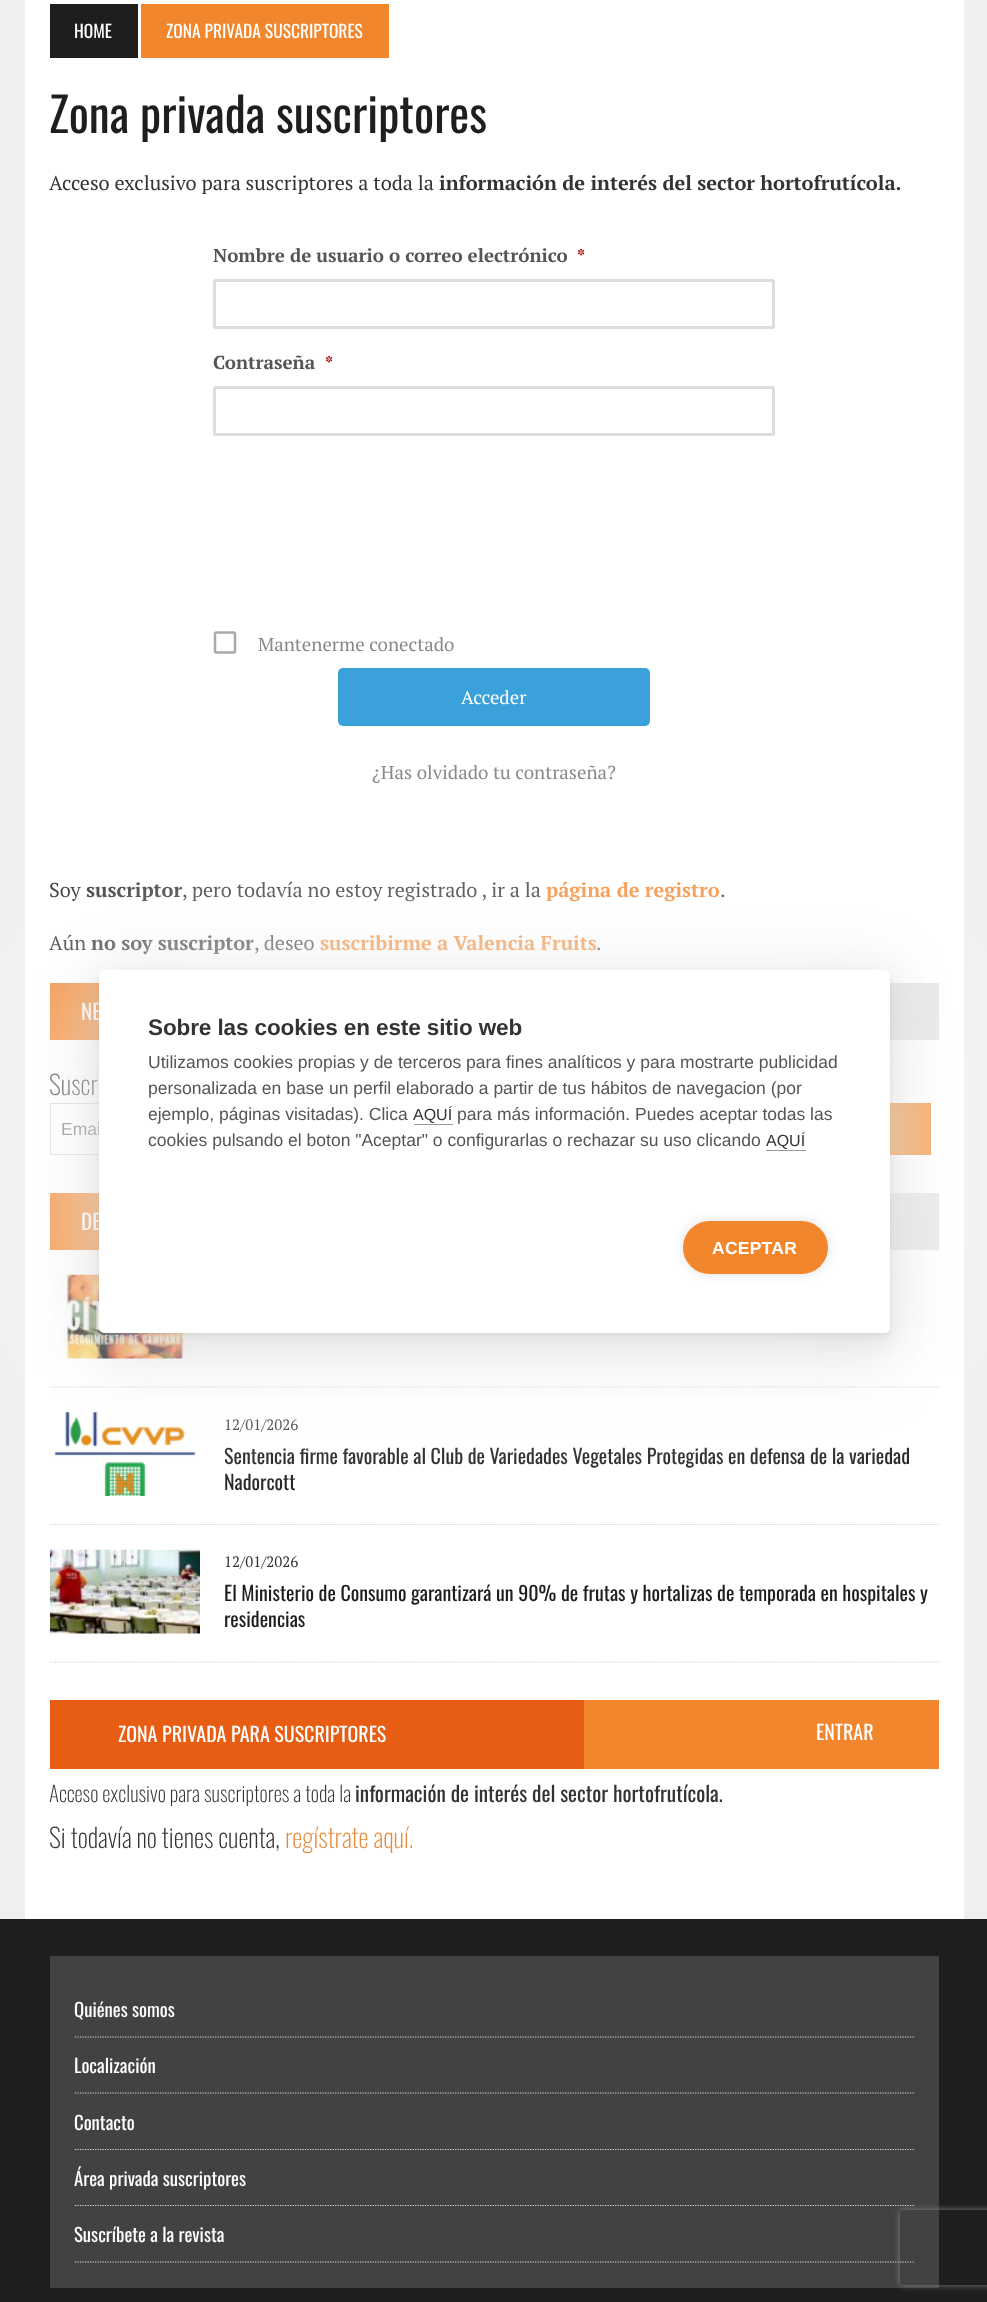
<svg xmlns="http://www.w3.org/2000/svg" width="987" height="2302" viewBox="0 0 987 2302">
  <defs>
    <filter id="blur1" x="-50%" y="-200%" width="200%" height="500%"><feGaussianBlur stdDeviation="40"/></filter>
    <filter id="blur2" x="-50%" y="-200%" width="200%" height="500%"><feGaussianBlur stdDeviation="20"/></filter>
    <filter id="blur3" x="-50%" y="-200%" width="200%" height="500%"><feGaussianBlur stdDeviation="10"/></filter>
    <filter id="blur4" x="-50%" y="-200%" width="200%" height="500%"><feGaussianBlur stdDeviation="5"/></filter>
    <filter id="blur5" x="-50%" y="-200%" width="200%" height="500%"><feGaussianBlur stdDeviation="2.5"/></filter>
    <filter id="blur6" x="-50%" y="-200%" width="200%" height="500%"><feGaussianBlur stdDeviation="1"/></filter>
    <filter id="blur7" x="-50%" y="-200%" width="200%" height="500%"><feGaussianBlur stdDeviation="31"/></filter>
    <filter id="blur8" x="-50%" y="-200%" width="200%" height="500%"><feGaussianBlur stdDeviation="75"/></filter>
    <filter id="blur9" x="-50%" y="-200%" width="200%" height="500%"><feGaussianBlur stdDeviation="6"/></filter>
    <clipPath id="clip1"><path d="M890 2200H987V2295H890ZM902.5 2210H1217.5C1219 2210 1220 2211 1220 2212.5V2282.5C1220 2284 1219 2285 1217.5 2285H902.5C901 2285 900 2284 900 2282.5V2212.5C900 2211 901 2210 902.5 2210Z" clip-rule="evenodd"/></clipPath>
    <filter id="blur10" x="-50%" y="-200%" width="200%" height="500%"><feGaussianBlur stdDeviation="3"/></filter>
  </defs>
  <rect width="100%" height="100%" fill="#efefef"/>
  <rect x="25" y="0" width="939" height="1919" fill="#ffffff"/>
  <rect x="50" y="4" width="88" height="54" fill="#1f1e1e"/>
  <text x="74" y="38" font-family="Oswald" font-size="17.5" fill="#ffffff">HOME</text>
  <rect x="141" y="4" width="248" height="54" fill="#f2862c"/>
  <text x="166" y="38" font-family="Oswald" font-size="17.5" fill="#ffffff">ZONA PRIVADA SUSCRIPTORES</text>
  <text x="49" y="133" font-family="Oswald" font-size="47.5" fill="#1f1e1e">Zona privada suscriptores</text>
  <text x="49" y="190" font-family="PT Serif" font-size="20" fill="#333333">Acceso exclusivo para suscriptores a toda la</text>
  <text x="439" y="190" font-family="PT Serif" font-size="20" font-weight="bold" fill="#333333">información de interés del sector hortofrutícola.</text>
  <text x="213" y="262" font-family="PT Serif" font-size="18.75" font-weight="bold" fill="#555555">Nombre de usuario o correo electrónico</text>
  <text x="577" y="262" font-family="PT Serif" font-size="17.5" font-weight="bold" fill="#aa0101">*</text>
  <rect x="214.5" y="280.5" width="559" height="47" rx="1" fill="none" stroke="#dddddd" stroke-width="3"/>
  <text x="213" y="369" font-family="PT Serif" font-size="18.75" font-weight="bold" fill="#555555">Contraseña</text>
  <text x="325" y="369" font-family="PT Serif" font-size="17.5" font-weight="bold" fill="#aa0101">*</text>
  <rect x="214.5" y="387.5" width="559" height="47" rx="1" fill="none" stroke="#dddddd" stroke-width="3"/>
  <image x="213" y="631" width="24" height="23" href="img1.png"/>
  <text x="258" y="651" font-family="PT Serif" font-size="18.75" fill="#888888">Mantenerme conectado</text>
  <rect x="338" y="668" width="312" height="58" rx="5" fill="#3ba1da"/>
  <text x="461" y="704" font-family="PT Serif" font-size="18.75" fill="#ffffff">Acceder</text>
  <text x="372" y="779" font-family="PT Serif" font-size="18.75" fill="#888888">¿Has olvidado tu contraseña?</text>
  <text x="49" y="897" font-family="PT Serif" font-size="20" fill="#333333">Soy</text>
  <text x="86" y="897" font-family="PT Serif" font-size="20" font-weight="bold" fill="#333333">suscriptor</text>
  <text x="182" y="897" font-family="PT Serif" font-size="20" fill="#333333">, pero todavía no estoy registrado , ir a la</text>
  <text x="546" y="897" font-family="PT Serif" font-size="20" font-weight="bold" fill="#f2862c">página de registro</text>
  <text x="720" y="897" font-family="PT Serif" font-size="20" fill="#333333">.</text>
  <text x="49" y="950" font-family="PT Serif" font-size="20" fill="#333333">Aún</text>
  <text x="91" y="950" font-family="PT Serif" font-size="20" font-weight="bold" fill="#333333">no soy suscriptor</text>
  <text x="254" y="950" font-family="PT Serif" font-size="20" fill="#333333">, deseo</text>
  <text x="320" y="950" font-family="PT Serif" font-size="20" font-weight="bold" fill="#f2862c">suscribirme a Valencia Fruits</text>
  <text x="596" y="950" font-family="PT Serif" font-size="20" fill="#333333">.</text>
  <rect x="890" y="983" width="49" height="57" fill="#e2e2e2"/>
  <rect x="50" y="983" width="49" height="57" fill="#f2862c"/>
  <text x="81" y="1020" font-family="Oswald" font-size="21.25" fill="#ffffff">NE</text>
  <text x="49" y="1095" font-family="Oswald" font-size="26.25" font-weight="200" fill="#333333">Suscr</text>
  <rect x="50.5" y="1103.5" width="575" height="51" fill="none" stroke="#d7d8d8"/>
  <text x="61" y="1135" font-family="Liberation Sans" font-size="17.5" fill="#757575">Emai</text>
  <rect x="890" y="1103" width="41" height="52" fill="#f0892d"/>
  <rect x="890" y="1193" width="49" height="57" fill="#e2e2e2"/>
  <rect x="50" y="1193" width="49" height="57" fill="#f2862c"/>
  <text x="81" y="1230" font-family="Oswald" font-size="21.25" fill="#ffffff">DE</text>
  <image x="50" y="1274" width="141" height="85" href="img2.png"/>
  <path d="M50 1387H939" fill="none" stroke="#cdcdcd" stroke-width="1.2" stroke-dasharray="1.25 1.25"/>
  <image x="54" y="1412" width="142" height="84" href="img3.png"/>
  <text x="224" y="1430" font-family="PT Serif" font-size="15" fill="#333333">12/01/2026</text>
  <text x="224" y="1464" font-family="Oswald" font-size="20" fill="#1f1e1e">Sentencia firme favorable al Club de Variedades Vegetales Protegidas en defensa de la variedad</text>
  <text x="224" y="1490" font-family="Oswald" font-size="20" fill="#1f1e1e">Nadorcott</text>
  <path d="M50 1524.5H939" fill="none" stroke="#cdcdcd" stroke-width="1.2" stroke-dasharray="1.25 1.25"/>
  <image x="50" y="1549" width="150" height="85" href="img4.png"/>
  <text x="224" y="1567" font-family="PT Serif" font-size="15" fill="#333333">12/01/2026</text>
  <text x="224" y="1601" font-family="Oswald" font-size="20" fill="#1f1e1e">El Ministerio de Consumo garantizará un 90% de frutas y hortalizas de temporada en hospitales y</text>
  <text x="224" y="1627" font-family="Oswald" font-size="20" fill="#1f1e1e">residencias</text>
  <path d="M50 1662H939" fill="none" stroke="#cdcdcd" stroke-width="1.2" stroke-dasharray="1.25 1.25"/>
  <rect x="584" y="1700" width="355" height="69" fill="#f2862c"/>
  <rect x="50" y="1700" width="534" height="69" fill="#e65d13"/>
  <text x="118" y="1742" font-family="Oswald" font-size="20" fill="#ffffff">ZONA PRIVADA PARA SUSCRIPTORES</text>
  <text x="816" y="1740" font-family="Oswald" font-size="20" fill="#ffffff">ENTRAR</text>
  <text x="49" y="1802" font-family="Oswald" font-size="21.25" font-weight="200" fill="#333333">Acceso exclusivo para suscriptores a toda la</text>
  <text x="355" y="1802" font-family="Oswald" font-size="21.25" fill="#333333">información de interés del sector hortofrutícola.</text>
  <text x="49" y="1848" font-family="Oswald" font-size="26.25" font-weight="200" fill="#333333">Si todavía no tienes cuenta,</text>
  <text x="285" y="1848" font-family="Oswald" font-size="26.25" font-weight="200" fill="#e88a3a">regístrate aquí.</text>
  <rect x="99" y="1010" width="791" height="363" rx="5" fill="#000000" fill-opacity="0.05" filter="url(#blur1)"/>
  <rect x="99" y="990" width="791" height="363" rx="5" fill="#000000" fill-opacity="0.05" filter="url(#blur2)"/>
  <rect x="99" y="980" width="791" height="363" rx="5" fill="#000000" fill-opacity="0.05" filter="url(#blur3)"/>
  <rect x="99" y="975" width="791" height="363" rx="5" fill="#000000" fill-opacity="0.05" filter="url(#blur4)"/>
  <rect x="99" y="973" width="791" height="362" rx="5" fill="#000000" fill-opacity="0.05" filter="url(#blur5)"/>
  <rect x="99" y="971" width="791" height="363" rx="5" fill="#000000" fill-opacity="0.05" filter="url(#blur6)"/>
  <rect x="99" y="970" width="791" height="363" rx="5" fill="#000000" fill-opacity="0.15" filter="url(#blur7)"/>
  <rect x="59" y="930" width="871" height="443" rx="45" fill="#ffffff" fill-opacity="0.75" filter="url(#blur8)"/>
  <rect x="99" y="970" width="791" height="363" rx="5" fill="#ffffff"/>
  <text x="148" y="1035" font-family="Liberation Sans" font-size="22.5" font-weight="bold" letter-spacing="-0.1" fill="#333333">Sobre las cookies en este sitio web</text>
  <text x="148" y="1068" font-family="Liberation Sans" font-size="17.5" fill="#555555">Utilizamos cookies propias y de terceros para fines analíticos y para mostrarte publicidad</text>
  <text x="148" y="1094" font-family="Liberation Sans" font-size="17.5" fill="#555555">personalizada en base un perfil elaborado a partir de tus hábitos de navegacion (por</text>
  <text x="148" y="1120" font-family="Liberation Sans" font-size="17.5" fill="#555555">ejemplo, páginas visitadas). Clica</text>
  <text x="413" y="1120" font-family="Liberation Sans" font-size="16" fill="#333333">AQUÍ</text>
  <rect x="414" y="1124" width="39" height="1" fill="#999999"/>
  <text x="457" y="1120" font-family="Liberation Sans" font-size="17.5" fill="#555555">para más información. Puedes aceptar todas las</text>
  <text x="148" y="1146" font-family="Liberation Sans" font-size="17.5" fill="#555555">cookies pulsando el boton "Aceptar" o configurarlas o rechazar su uso clicando</text>
  <text x="766" y="1146" font-family="Liberation Sans" font-size="16" fill="#333333">AQUÍ</text>
  <rect x="766" y="1150" width="40" height="1" fill="#999999"/>
  <rect x="683" y="1221" width="145" height="53" rx="26.5" fill="#000000" fill-opacity="0.12" filter="url(#blur9)"/>
  <rect x="683" y="1221" width="145" height="53" rx="26.5" fill="#f2862c"/>
  <text x="712" y="1254" font-family="Liberation Sans" font-size="17.5" font-weight="bold" letter-spacing="0.25" fill="#ffffff">ACEPTAR</text>
  <rect x="0" y="1919" width="987" height="383" fill="#1f1e1e"/>
  <rect x="50" y="1956" width="889" height="332" fill="#424242"/>
  <path d="M75 2037H914" fill="none" stroke="#dcdcdc" stroke-width="1.2" stroke-dasharray="1.25 1.25"/>
  <text x="74" y="2017" font-family="Oswald" font-size="18.75" fill="#ffffff">Quiénes somos</text>
  <path d="M75 2093H914" fill="none" stroke="#dcdcdc" stroke-width="1.2" stroke-dasharray="1.25 1.25"/>
  <text x="74" y="2073" font-family="Oswald" font-size="18.75" fill="#ffffff">Localización</text>
  <path d="M75 2149.5H914" fill="none" stroke="#dcdcdc" stroke-width="1.2" stroke-dasharray="1.25 1.25"/>
  <text x="74" y="2130" font-family="Oswald" font-size="18.75" fill="#ffffff">Contacto</text>
  <path d="M75 2205.5H914" fill="none" stroke="#dcdcdc" stroke-width="1.2" stroke-dasharray="1.25 1.25"/>
  <text x="74" y="2186" font-family="Oswald" font-size="18.75" fill="#ffffff">Área privada suscriptores</text>
  <path d="M75 2262H914" fill="none" stroke="#dcdcdc" stroke-width="1.2" stroke-dasharray="1.25 1.25"/>
  <text x="74" y="2242" font-family="Oswald" font-size="18.75" fill="#ffffff">Suscríbete a la revista</text>
  <g clip-path="url(#clip1)">
    <rect x="900" y="2210" width="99" height="75" rx="2.5" fill="#808080" filter="url(#blur10)"/>
  </g>
</svg>
